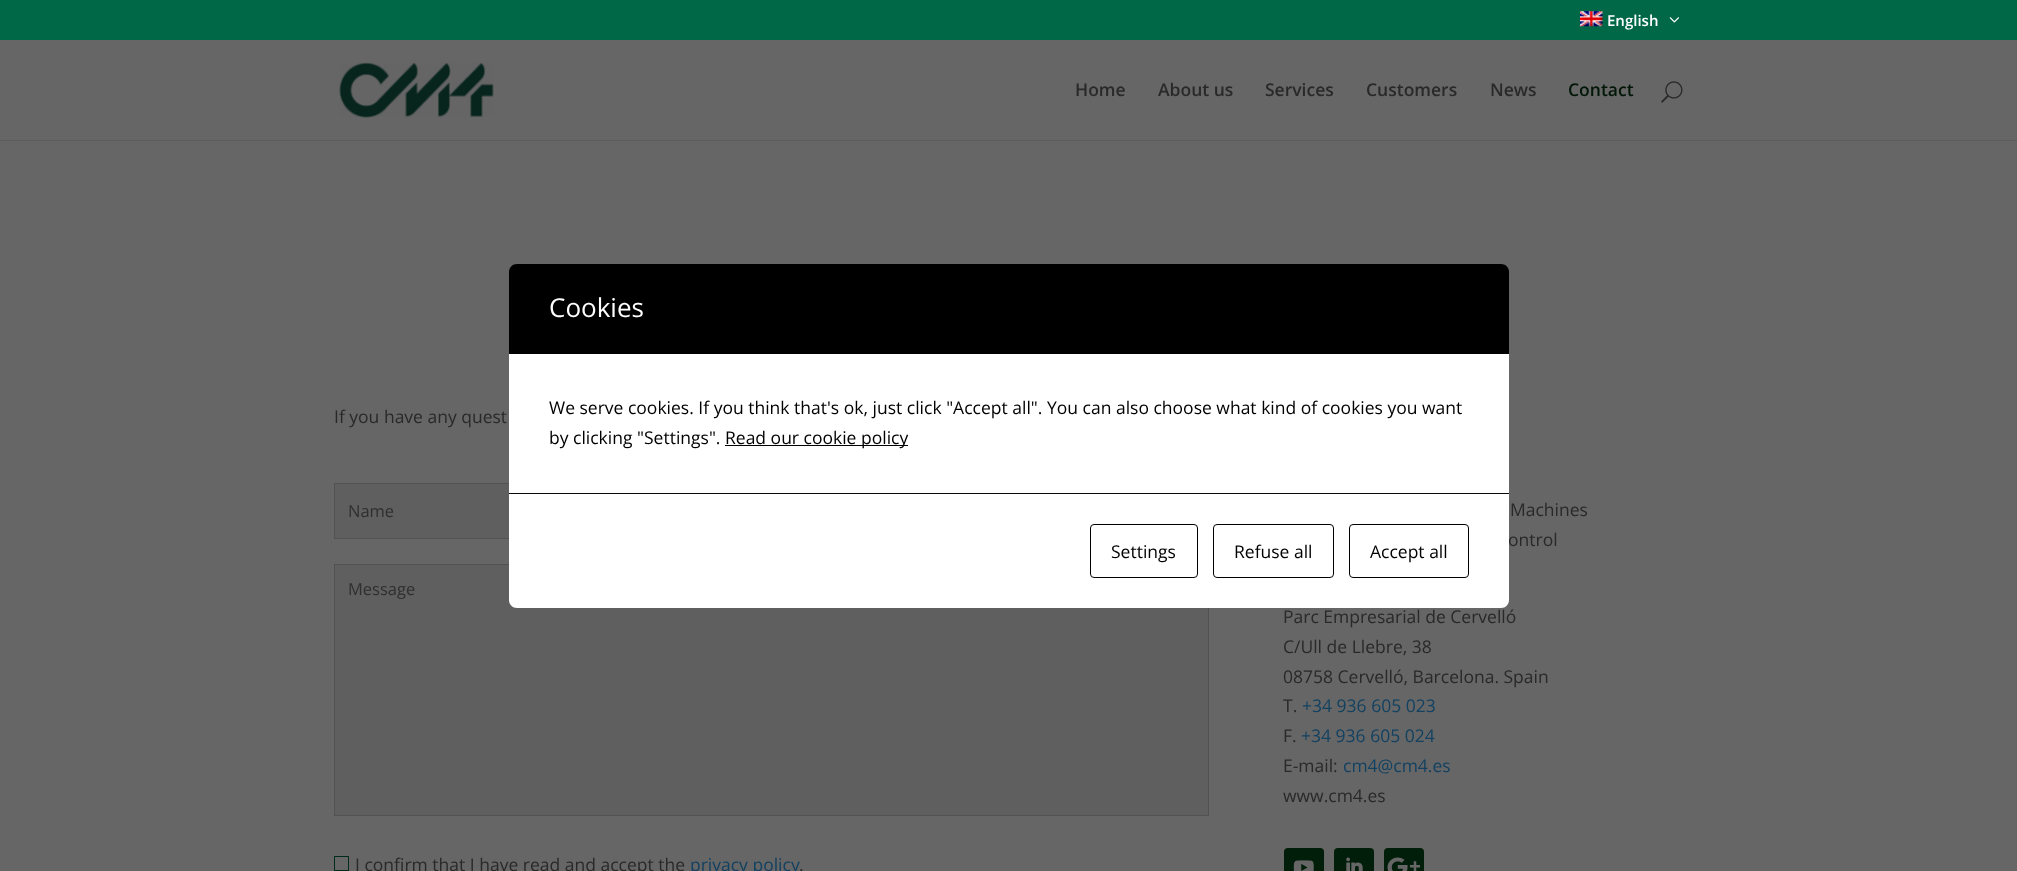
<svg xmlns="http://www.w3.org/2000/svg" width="2017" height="871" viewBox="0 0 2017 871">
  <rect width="100%" height="100%" fill="#666666"/>
  <rect x="0" y="0" width="2017" height="40" fill="#006747"/>
  <image x="1580" y="11" width="23" height="16" href="img1.png"/>
  <text x="1607" y="26" font-family="Open Sans" font-size="15" font-weight="600" fill="#ffffff">English</text>
  <image x="1669" y="17" width="10" height="6" href="img2.png"/>
  <path d="M0 140V141H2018V41V140Z" fill="#5c5c5c"/>
  <image x="339" y="62" width="155" height="56" href="img3.png"/>
  <text x="1075" y="96" font-family="Open Sans" font-size="17.5" font-weight="600" fill="#292929">Home</text>
  <text x="1158" y="96" font-family="Open Sans" font-size="17.5" font-weight="600" fill="#292929">About us</text>
  <text x="1265" y="96" font-family="Open Sans" font-size="17.5" font-weight="600" fill="#292929">Services</text>
  <text x="1366" y="96" font-family="Open Sans" font-size="17.5" font-weight="600" fill="#292929">Customers</text>
  <text x="1490" y="96" font-family="Open Sans" font-size="17.5" font-weight="600" fill="#292929">News</text>
  <text x="1568" y="96" font-family="Open Sans" font-size="17.5" font-weight="600" fill="#021707">Contact</text>
  <image x="1661" y="81" width="22" height="22" href="img4.png"/>
  <text x="334" y="423" font-family="Open Sans" font-size="17.5" fill="#292929">If you have any quest</text>
  <rect x="335" y="484" width="174" height="54" fill="#5f5f5f"/>
  <rect x="334.5" y="483.5" width="424" height="55" fill="none" stroke="#525252"/>
  <text x="348" y="517" font-family="Open Sans" font-size="16.5" fill="#2f2f2f">Name</text>
  <rect x="334.5" y="564.5" width="874" height="251" fill="#5f5f5f" stroke="#525252"/>
  <text x="348" y="595" font-family="Open Sans" font-size="16.5" fill="#2f2f2f">Message</text>
  <rect x="334.5" y="856.5" width="14" height="14" fill="none" stroke="#002a1c"/>
  <text x="355" y="871" font-family="Open Sans" font-size="17.5" fill="#292929">I confirm that I have read and accept the</text>
  <text x="690" y="871" font-family="Open Sans" font-size="17.5" fill="#124161">privacy policy</text>
  <text x="799" y="871" font-family="Open Sans" font-size="17.5" fill="#292929">.</text>
  <text x="1510" y="516" font-family="Open Sans" font-size="17.5" fill="#292929">Machines</text>
  <text x="1508" y="546" font-family="Open Sans" font-size="17.5" fill="#292929">ontrol</text>
  <text x="1283" y="623" font-family="Open Sans" font-size="17.5" fill="#292929">Parc Empresarial de Cervelló</text>
  <text x="1283" y="653" font-family="Open Sans" font-size="17.5" fill="#292929">C/Ull de Llebre, 38</text>
  <text x="1283" y="683" font-family="Open Sans" font-size="17.5" fill="#292929">08758 Cervelló, Barcelona. Spain</text>
  <text x="1283" y="712" font-family="Open Sans" font-size="17.5" fill="#292929">T.</text>
  <text x="1302" y="712" font-family="Open Sans" font-size="17.5" fill="#124161">+34 936 605 023</text>
  <text x="1283" y="742" font-family="Open Sans" font-size="17.5" fill="#292929">F.</text>
  <text x="1301" y="742" font-family="Open Sans" font-size="17.5" fill="#124161">+34 936 605 024</text>
  <text x="1283" y="772" font-family="Open Sans" font-size="17.5" fill="#292929">E-mail:</text>
  <text x="1343" y="772" font-family="Open Sans" font-size="17.5" fill="#124161">cm4@cm4.es</text>
  <text x="1283" y="802" font-family="Open Sans" font-size="17.5" fill="#292929">www.cm4.es</text>
  <rect x="1284" y="848" width="40" height="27" rx="4" fill="#001e0a"/>
  <image x="1293" y="860" width="21" height="11" href="img5.png"/>
  <rect x="1334" y="848" width="40" height="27" rx="4" fill="#001e0a"/>
  <image x="1346" y="857" width="17" height="14" href="img6.png"/>
  <rect x="1384" y="848" width="40" height="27" rx="4" fill="#001e0a"/>
  <image x="1387" y="857" width="33" height="14" href="img7.png"/>
  <path d="M517 264H1501C1505.5 264 1509 267.5 1509 272V354H509V272C509 267.5 512.5 264 517 264Z" fill="#000000"/>
  <text x="549" y="317" font-family="Open Sans" font-size="26" fill="#ffffff">Cookies</text>
  <rect x="509" y="354" width="1000" height="139" fill="#ffffff"/>
  <text x="549" y="414" font-family="Open Sans" font-size="17.5" fill="#000000">We serve cookies. If you think that's ok, just click "Accept all". You can also choose what kind of cookies you want</text>
  <text x="549" y="444" font-family="Open Sans" font-size="17.5" fill="#000000">by clicking "Settings".</text>
  <rect x="725" y="445" width="183" height="1" fill="#000000"/>
  <text x="725" y="444" font-family="Open Sans" font-size="17.5" fill="#000000">Read our cookie policy</text>
  <path d="M509 493H1509V600C1509 604.5 1505.5 608 1501 608H517C512.5 608 509 604.5 509 600Z" fill="#ffffff"/>
  <rect x="509" y="493" width="1000" height="1" fill="#0a0a0a"/>
  <rect x="1090.5" y="524.5" width="107" height="53" rx="3.5" fill="none" stroke="#000000"/>
  <text x="1111" y="558" font-family="Open Sans" font-size="17.5" fill="#000000">Settings</text>
  <rect x="1213.5" y="524.5" width="120" height="53" rx="3.5" fill="none" stroke="#000000"/>
  <text x="1234" y="558" font-family="Open Sans" font-size="17.5" fill="#000000">Refuse all</text>
  <rect x="1349.5" y="524.5" width="119" height="53" rx="3.5" fill="none" stroke="#000000"/>
  <text x="1370" y="558" font-family="Open Sans" font-size="17.5" fill="#000000">Accept all</text>
</svg>
